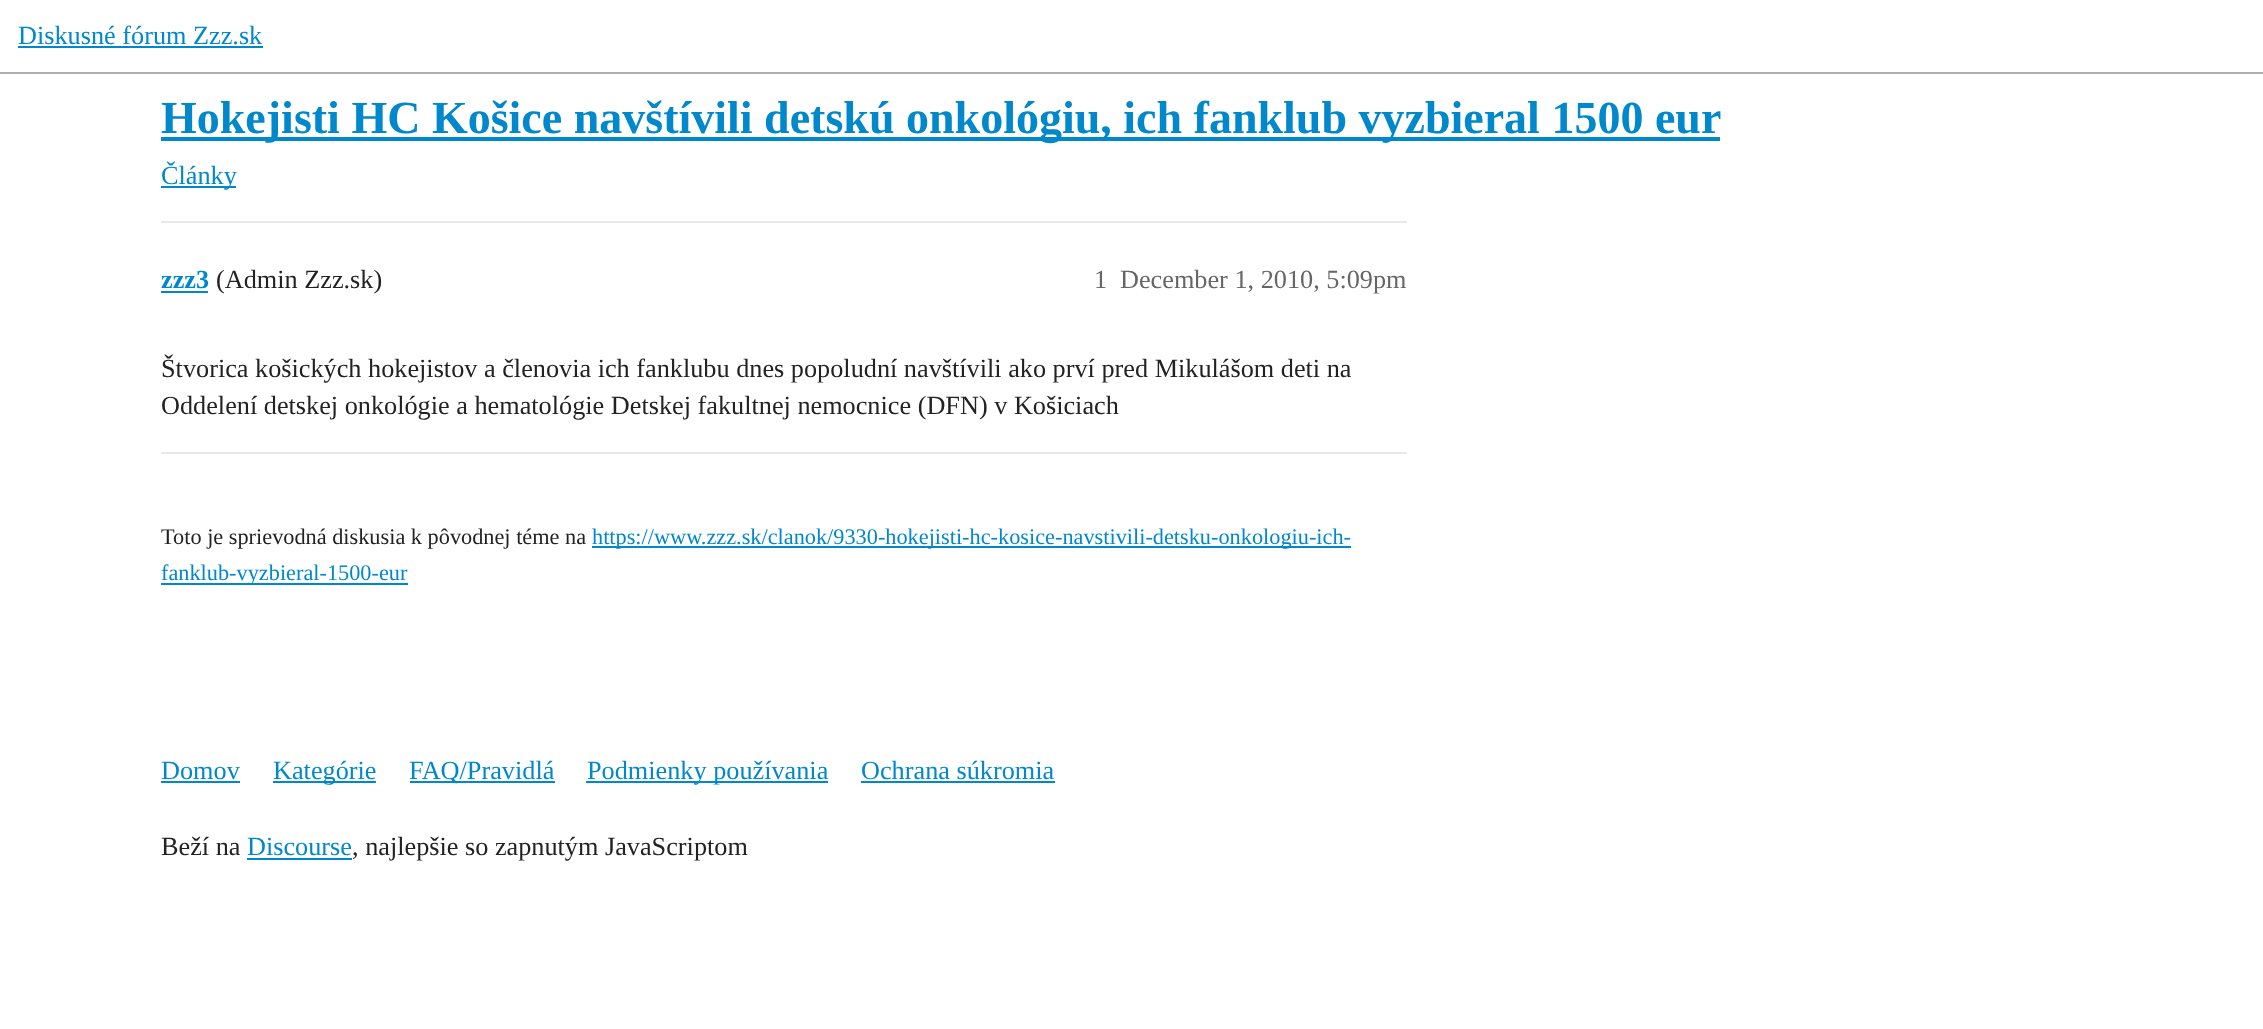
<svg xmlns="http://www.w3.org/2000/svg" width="2263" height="1029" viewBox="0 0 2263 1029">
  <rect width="100%" height="100%" fill="#ffffff"/>
  <rect x="0" y="72" width="2263" height="2" fill="#afafaf"/>
  <text x="18" y="44" font-family="Liberation Serif" font-size="26.25" fill="#0088cc">Diskusné fórum Zzz.sk</text>
  <rect x="18" y="46" width="245" height="2" fill="#0088cc"/>
  <rect x="161" y="137" width="1559" height="4" fill="#0088cc"/>
  <text x="161" y="133" font-family="Liberation Serif" font-size="46" font-weight="bold" fill="#0088cc">Hokejisti HC Košice navštívili detskú onkológiu, ich fanklub vyzbieral 1500 eur</text>
  <rect x="161" y="186" width="75" height="2" fill="#0088cc"/>
  <text x="161" y="184" font-family="Liberation Serif" font-size="26.25" fill="#0088cc">Články</text>
  <rect x="161" y="221" width="1246" height="2" fill="#e9e9e9"/>
  <text x="161" y="288" font-family="Liberation Serif" font-size="26.25" font-weight="bold" fill="#0088cc">zzz3</text>
  <rect x="161" y="291" width="47" height="2" fill="#0088cc"/>
  <text x="216" y="288" font-family="Liberation Serif" font-size="26.25" fill="#222222">(Admin Zzz.sk)</text>
  <text x="1094" y="288" font-family="Liberation Serif" font-size="26.25" fill="#666666">1</text>
  <text x="1120" y="288" font-family="Liberation Serif" font-size="26.25" fill="#666666">December 1, 2010, 5:09pm</text>
  <text x="161" y="377" font-family="Liberation Serif" font-size="26.25" fill="#222222">Štvorica košických hokejistov a členovia ich fanklubu dnes popoludní navštívili ako prví pred Mikulášom deti na</text>
  <text x="161" y="414" font-family="Liberation Serif" font-size="26.25" fill="#222222">Oddelení detskej onkológie a hematológie Detskej fakultnej nemocnice (DFN) v Košiciach</text>
  <rect x="161" y="452" width="1246" height="2" fill="#e9e9e9"/>
  <text x="161" y="544" font-family="Liberation Serif" font-size="22.3" fill="#222222">Toto je sprievodná diskusia k pôvodnej téme na</text>
  <rect x="592" y="546" width="759" height="2" fill="#0088cc"/>
  <text x="592" y="544" font-family="Liberation Serif" font-size="22.3" fill="#0088cc">https://www.zzz.sk/clanok/9330-hokejisti-hc-kosice-navstivili-detsku-onkologiu-ich-</text>
  <rect x="161" y="583" width="247" height="2" fill="#0088cc"/>
  <text x="161" y="580" font-family="Liberation Serif" font-size="22.3" fill="#0088cc">fanklub-vyzbieral-1500-eur</text>
  <text x="161" y="779" font-family="Liberation Serif" font-size="26.25" fill="#0088cc">Domov</text>
  <rect x="161" y="781" width="79" height="2" fill="#0088cc"/>
  <rect x="273" y="781" width="103" height="2" fill="#0088cc"/>
  <text x="273" y="779" font-family="Liberation Serif" font-size="26.25" fill="#0088cc">Kategórie</text>
  <rect x="410" y="781" width="145" height="2" fill="#0088cc"/>
  <text x="409" y="779" font-family="Liberation Serif" font-size="26.25" fill="#0088cc">FAQ/Pravidlá</text>
  <rect x="586" y="781" width="242" height="2" fill="#0088cc"/>
  <text x="587" y="779" font-family="Liberation Serif" font-size="26.25" fill="#0088cc">Podmienky používania</text>
  <text x="861" y="779" font-family="Liberation Serif" font-size="26.25" fill="#0088cc">Ochrana súkromia</text>
  <rect x="861" y="781" width="194" height="2" fill="#0088cc"/>
  <text x="161" y="855" font-family="Liberation Serif" font-size="26.25" fill="#222222">Beží na</text>
  <text x="247" y="855" font-family="Liberation Serif" font-size="26.25" fill="#0088cc">Discourse</text>
  <rect x="247" y="858" width="105" height="2" fill="#0088cc"/>
  <text x="352" y="855" font-family="Liberation Serif" font-size="26.25" fill="#222222">, najlepšie so zapnutým JavaScriptom</text>
</svg>
